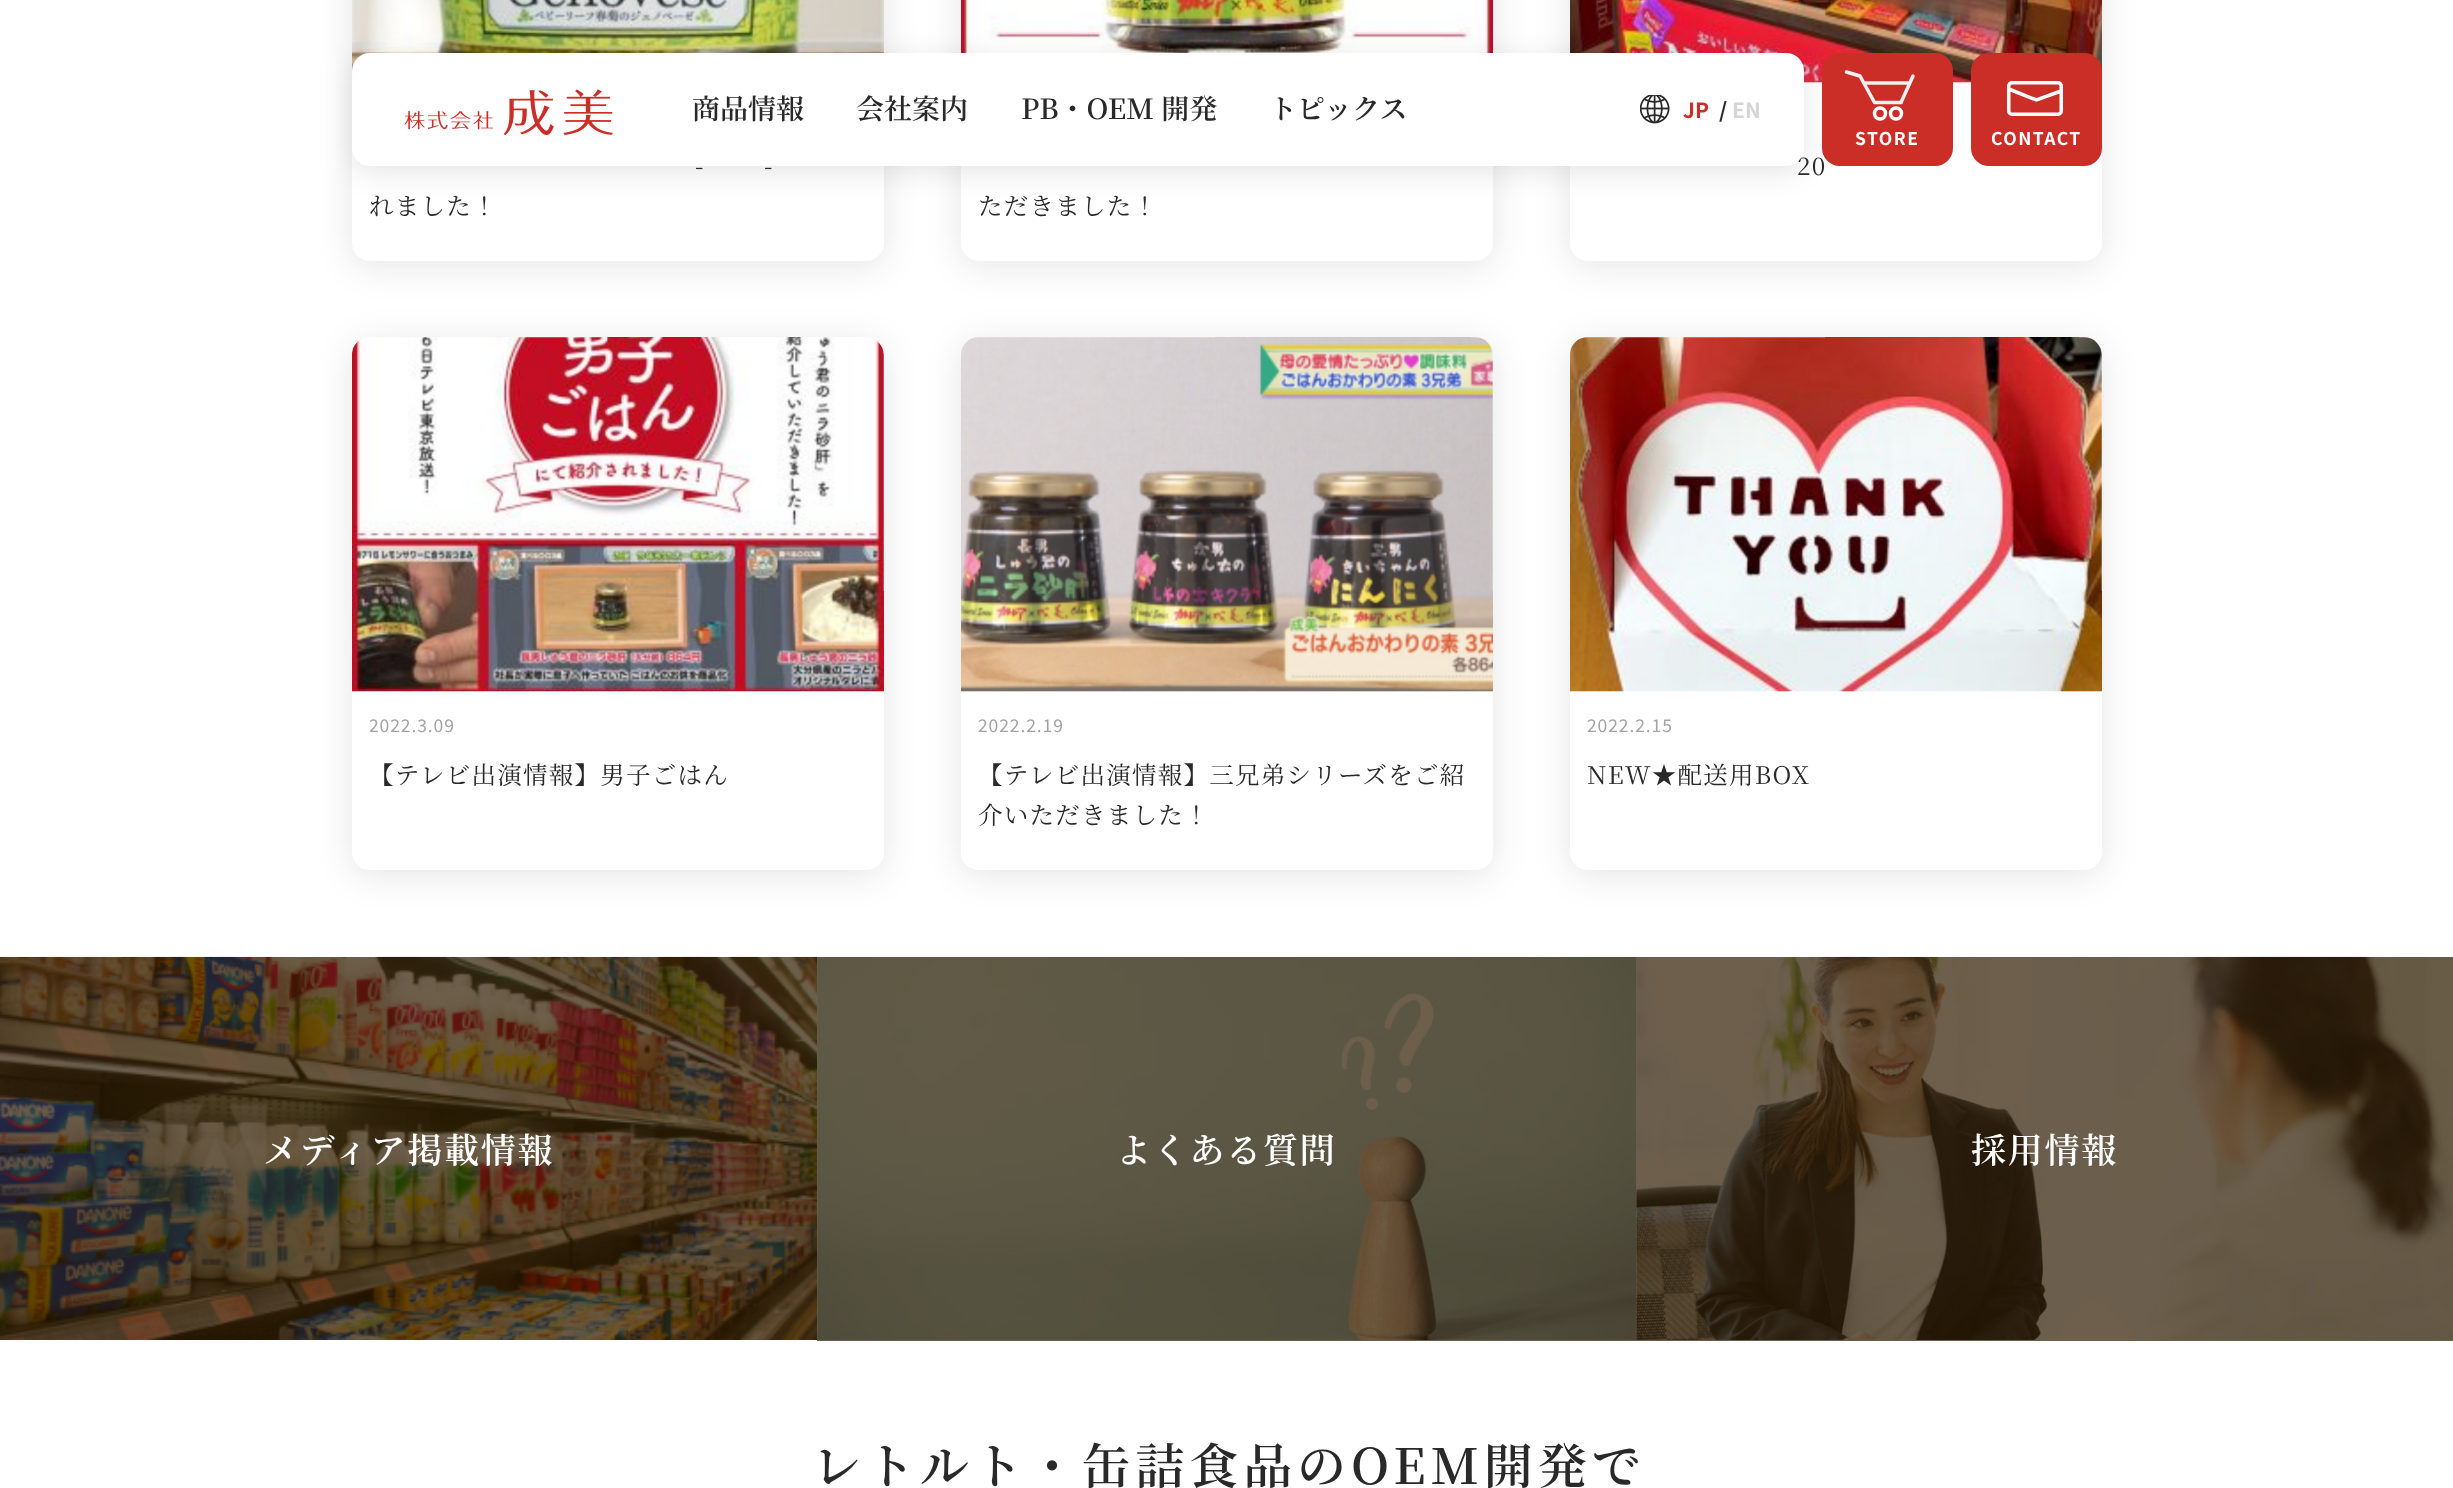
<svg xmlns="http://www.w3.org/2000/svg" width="2453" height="1488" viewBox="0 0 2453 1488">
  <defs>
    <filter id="blur1" x="-50%" y="-200%" width="200%" height="500%"><feGaussianBlur stdDeviation="17.5"/></filter>
    <filter id="blur2" x="-50%" y="-200%" width="200%" height="500%"><feGaussianBlur stdDeviation="14"/></filter>
  </defs>
  <rect width="100%" height="100%" fill="#ffffff"/>
  <rect x="352" y="-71" width="532" height="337" rx="18" fill="#000000" fill-opacity="0.1" filter="url(#blur1)"/>
  <image x="352" y="0" width="532" height="71" href="img3.png"/>
  <path d="M352 84H884V243C884 253 876 261 866 261H370C360 261 352 253 352 243Z" fill="#ffffff"/>
  <rect x="961" y="-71" width="532" height="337" rx="18" fill="#000000" fill-opacity="0.1" filter="url(#blur1)"/>
  <image x="961" y="0" width="532" height="53" href="img4.png"/>
  <path d="M961 84H1493V243C1493 253 1485 261 1475 261H979C969 261 961 253 961 243Z" fill="#ffffff"/>
  <rect x="1570" y="-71" width="532" height="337" rx="18" fill="#000000" fill-opacity="0.1" filter="url(#blur1)"/>
  <rect x="1570" y="-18" width="532" height="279" rx="18" fill="#ffffff"/>
  <image x="1570" y="0" width="532" height="83" href="img5.png"/>
  <rect x="352" y="58" width="1452" height="114" rx="18" fill="#000000" fill-opacity="0.1" filter="url(#blur2)"/>
  <text x="1797" y="175" font-family="Noto Serif JP" font-size="24.5" letter-spacing="1.25" fill="#292929">20</text>
  <rect x="352" y="53" width="1452" height="113" rx="18" fill="#ffffff"/>
  <image x="404" y="89" width="209" height="46" href="img1.png"/>
  <text x="692" y="119" font-family="Noto Serif JP" font-size="28" font-weight="600" fill="#292929">商品情報</text>
  <text x="856" y="119" font-family="Noto Serif JP" font-size="28" font-weight="600" fill="#292929">会社案内</text>
  <text x="1021" y="119" font-family="Noto Serif JP" font-size="28" font-weight="600" fill="#292929">PB・OEM 開発</text>
  <text x="1269" y="119" font-family="Noto Serif JP" font-size="28" font-weight="600" fill="#292929">トピックス</text>
  <image x="1640" y="95" width="30" height="29" href="img2.png"/>
  <text x="1683" y="118" font-family="Noto Sans JP" font-size="21" font-weight="bold" fill="#cb2e27">JP</text>
  <text x="1719" y="118" font-family="Noto Sans JP" font-size="21" font-weight="bold" fill="#292929">/</text>
  <text x="1732" y="118" font-family="Noto Sans JP" font-size="21" font-weight="bold" fill="#d5d5d5">EN</text>
  <rect x="1823" y="54" width="129" height="111" rx="17" fill="#cb2e27" stroke="#cb2e27" stroke-width="2"/>
  <path d="M1846.5 72L1860 76M1860 76L1874.5 102.5M1874.5 102.5H1901" fill="none" stroke="#f0f0f0" stroke-width="3.5" stroke-linecap="round" stroke-linejoin="round"/>
  <path d="M1901 102.5L1913 76M1865 83H1909" fill="none" stroke="#f0f0f0" stroke-width="3.5" stroke-linecap="round" stroke-linejoin="round"/>
  <circle cx="1880" cy="113.5" r="5.5" fill="none" stroke="#ffffff" stroke-width="3.5"/>
  <circle cx="1896" cy="113.5" r="5.5" fill="none" stroke="#ffffff" stroke-width="3.5"/>
  <text x="1855" y="145" font-family="Noto Sans JP" font-size="17.5" font-weight="bold" letter-spacing="1.5" fill="#ffffff">STORE</text>
  <rect x="1972" y="54" width="129" height="111" rx="17" fill="#cb2e27" stroke="#cb2e27" stroke-width="2"/>
  <rect x="2008.75" y="82.75" width="52.5" height="31.5" rx="3.25" fill="none" stroke="#ffffff" stroke-width="3.5"/>
  <path d="M2010 89.5L2036.5 100L2062.5 90.5" fill="none" stroke="#ffffff" stroke-width="3.5"/>
  <text x="1991" y="145" font-family="Noto Sans JP" font-size="17.5" font-weight="bold" letter-spacing="1.5" fill="#ffffff">CONTACT</text>
  <text x="695" y="175" font-family="Noto Serif JP" font-size="24.5" letter-spacing="1.25" fill="#292929">-</text>
  <text x="764" y="175" font-family="Noto Serif JP" font-size="24.5" letter-spacing="1.25" fill="#292929">-</text>
  <text x="369" y="215" font-family="Noto Serif JP" font-size="24.5" letter-spacing="1.25" fill="#292929">れました！</text>
  <text x="978" y="215" font-family="Noto Serif JP" font-size="24.5" letter-spacing="1.25" fill="#292929">ただきました！</text>
  <rect x="352" y="343" width="532" height="532" rx="18" fill="#000000" fill-opacity="0.1" filter="url(#blur1)"/>
  <rect x="352" y="338" width="532" height="532" rx="18" fill="#ffffff"/>
  <image x="352" y="337" width="532" height="355" href="img6.png"/>
  <text x="369" y="732" font-family="Noto Sans JP" font-size="17.5" letter-spacing="0.9" fill="#a3a3a3">2022.3.09</text>
  <text x="369" y="784" font-family="Noto Serif JP" font-size="24.5" letter-spacing="1.25" fill="#292929">【テレビ出演情報】男子ごはん</text>
  <rect x="961" y="343" width="532" height="532" rx="18" fill="#000000" fill-opacity="0.1" filter="url(#blur1)"/>
  <rect x="961" y="338" width="532" height="532" rx="18" fill="#ffffff"/>
  <image x="961" y="337" width="532" height="355" href="img7.png"/>
  <path d="M961 693H1493V852C1493 862 1485 870 1475 870H979C969 870 961 862 961 852Z" fill="#ffffff"/>
  <text x="978" y="732" font-family="Noto Sans JP" font-size="17.5" letter-spacing="0.9" fill="#a3a3a3">2022.2.19</text>
  <text x="978" y="784" font-family="Noto Serif JP" font-size="24.5" letter-spacing="1.25" fill="#292929">【テレビ出演情報】三兄弟シリーズをご紹</text>
  <text x="978" y="824" font-family="Noto Serif JP" font-size="24.5" letter-spacing="1.25" fill="#292929">介いただきました！</text>
  <rect x="1570" y="343" width="532" height="532" rx="18" fill="#000000" fill-opacity="0.1" filter="url(#blur1)"/>
  <rect x="1570" y="338" width="532" height="532" rx="18" fill="#ffffff"/>
  <image x="1570" y="337" width="532" height="355" href="img8.png"/>
  <text x="1587" y="732" font-family="Noto Sans JP" font-size="17.5" letter-spacing="0.9" fill="#a3a3a3">2022.2.15</text>
  <text x="1587" y="784" font-family="Noto Serif JP" font-size="24.5" letter-spacing="1.25" fill="#292929">NEW★配送用BOX</text>
  <image x="0" y="956" width="818" height="384" href="img9.png"/>
  <text x="263" y="1163" font-family="Noto Serif JP" font-size="35" font-weight="600" letter-spacing="1.75" fill="#ffffff">メディア掲載情報</text>
  <image x="817" y="956" width="820" height="384" href="img10.png"/>
  <rect x="817" y="957" width="819" height="384" fill="#2f1b00" fill-opacity="0.7"/>
  <text x="1116" y="1163" font-family="Noto Serif JP" font-size="35" font-weight="600" letter-spacing="1.75" fill="#ffffff">よくある質問</text>
  <image x="1636" y="956" width="817" height="384" href="img11.png"/>
  <rect x="1636" y="957" width="817" height="384" fill="#2f1b00" fill-opacity="0.7"/>
  <text x="1971" y="1163" font-family="Noto Serif JP" font-size="35" font-weight="600" letter-spacing="1.75" fill="#ffffff">採用情報</text>
  <text x="812" y="1484" font-family="Noto Serif JP" font-size="49" font-weight="600" letter-spacing="4.9" fill="#292929">レトルト・缶詰食品のOEM開発で</text>
</svg>
